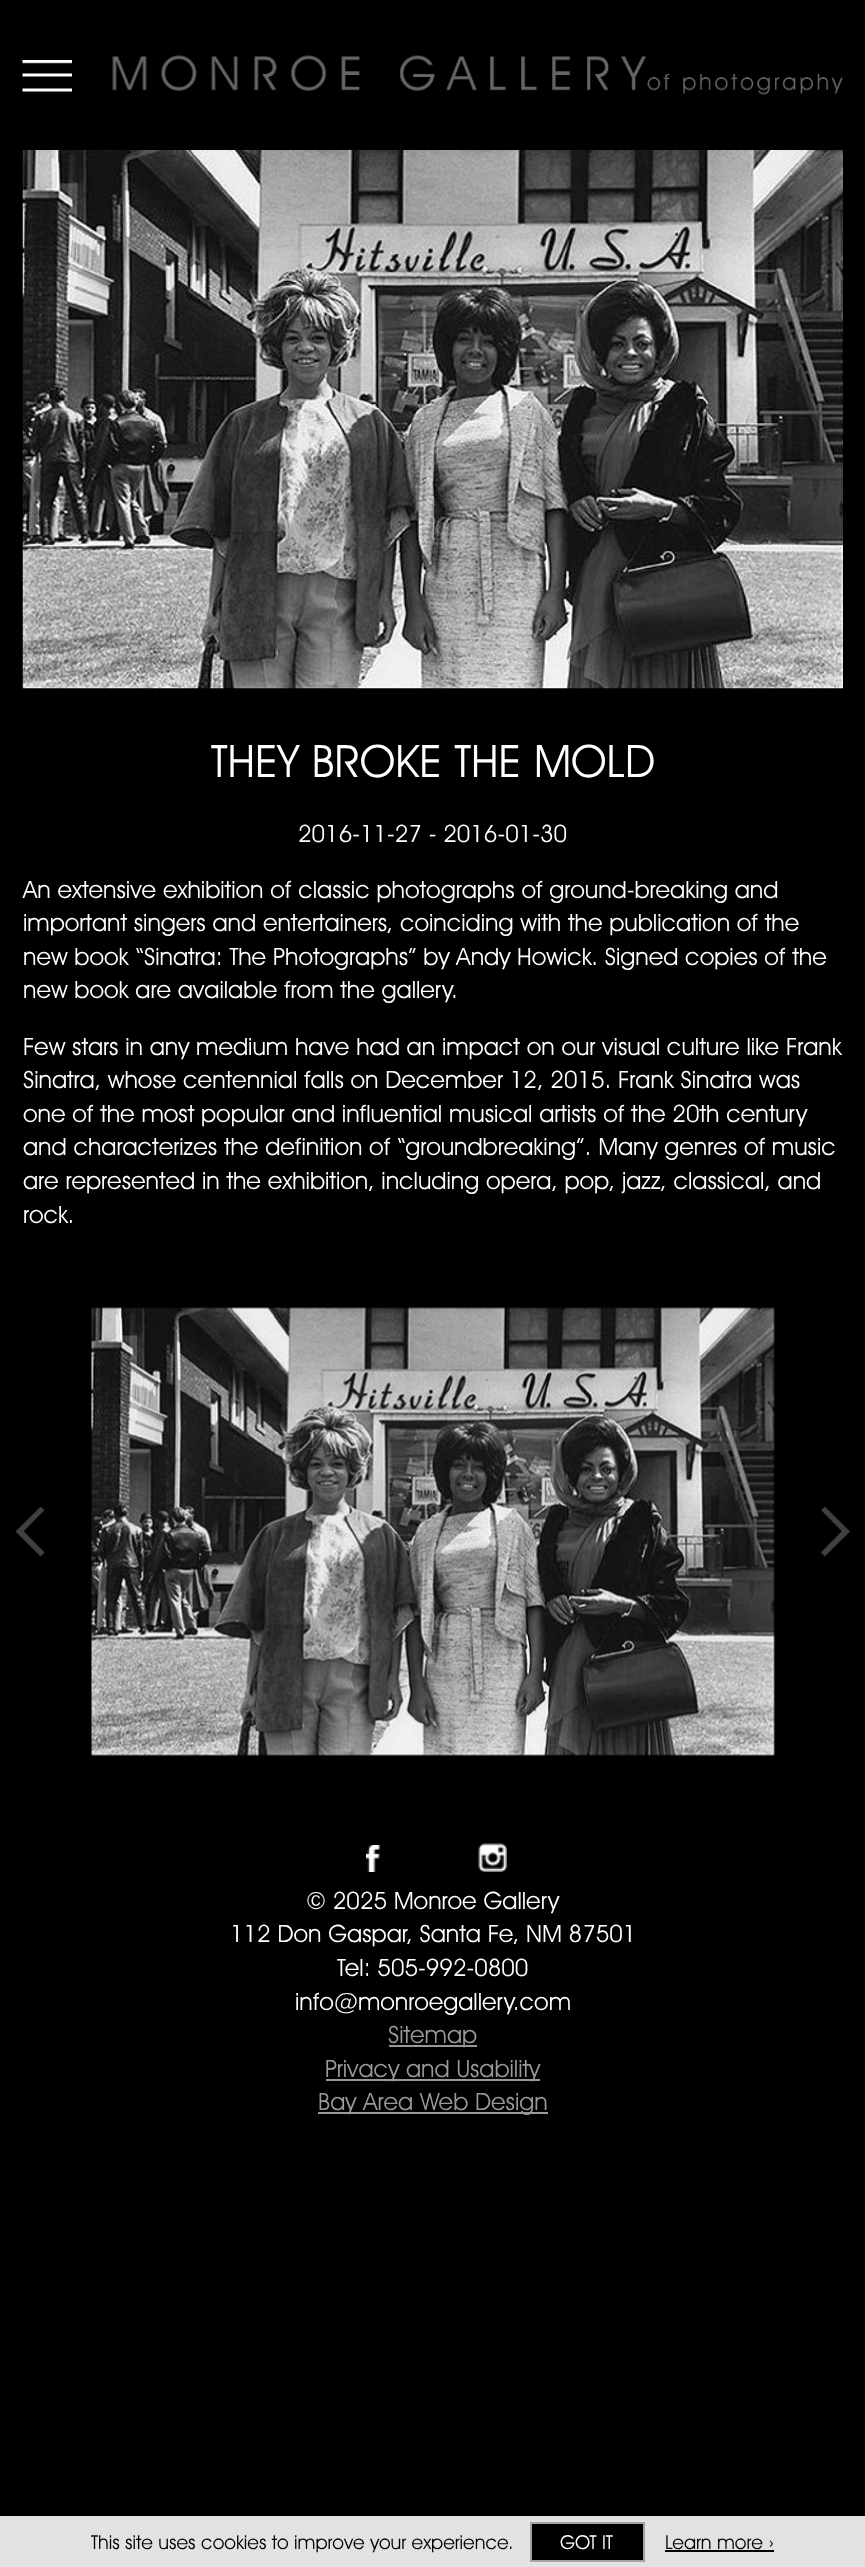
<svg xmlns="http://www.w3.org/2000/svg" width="865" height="2567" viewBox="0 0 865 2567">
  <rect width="100%" height="100%" fill="#000000"/>
  <image x="22" y="60" width="50" height="32" href="img1.png"/>
  <image x="112" y="55" width="731" height="40" href="img2.png"/>
  <image x="22" y="150" width="821" height="539" href="img3.png"/>
  <text x="211" y="777" font-family="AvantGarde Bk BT" font-size="45" fill="#ffffff">THEY BROKE THE MOLD</text>
  <text x="298" y="842" font-family="AvantGarde Bk BT" font-size="24" fill="#ffffff">2016-11-27 - 2016-01-30</text>
  <text x="23" y="898" font-family="AvantGarde Bk BT" font-size="24" fill="#ffffff">An extensive exhibition of classic photographs of ground-breaking and</text>
  <text x="23" y="931" font-family="AvantGarde Bk BT" font-size="24" fill="#ffffff">important singers and entertainers, coinciding with the publication of the</text>
  <text x="23" y="965" font-family="AvantGarde Bk BT" font-size="24" fill="#ffffff">new book “Sinatra: The Photographs” by Andy Howick. Signed copies of the</text>
  <text x="23" y="998" font-family="AvantGarde Bk BT" font-size="24" fill="#ffffff">new book are available from the gallery.</text>
  <text x="23" y="1055" font-family="AvantGarde Bk BT" font-size="24" fill="#ffffff">Few stars in any medium have had an impact on our visual culture like Frank</text>
  <text x="23" y="1088" font-family="AvantGarde Bk BT" font-size="24" fill="#ffffff">Sinatra, whose centennial falls on December 12, 2015. Frank Sinatra was</text>
  <text x="23" y="1122" font-family="AvantGarde Bk BT" font-size="24" fill="#ffffff">one of the most popular and influential musical artists of the 20th century</text>
  <text x="23" y="1155" font-family="AvantGarde Bk BT" font-size="24" fill="#ffffff">and characterizes the definition of “groundbreaking”. Many genres of music</text>
  <text x="23" y="1189" font-family="AvantGarde Bk BT" font-size="24" fill="#ffffff">are represented in the exhibition, including opera, pop, jazz, classical, and</text>
  <text x="23" y="1223" font-family="AvantGarde Bk BT" font-size="24" fill="#ffffff">rock.</text>
  <image x="15" y="1506" width="30" height="51" href="img4.png"/>
  <image x="91" y="1307" width="684" height="449" href="img5.png"/>
  <image x="820" y="1506" width="30" height="51" href="img6.png"/>
  <image x="366" y="1845" width="14" height="27" href="img7.png"/>
  <image x="478" y="1843" width="29" height="29" href="img8.png"/>
  <text x="306" y="1909" font-family="AvantGarde Bk BT" font-size="24" fill="#ffffff">© 2025 Monroe Gallery</text>
  <text x="230" y="1942" font-family="AvantGarde Bk BT" font-size="24" fill="#ffffff">112 Don Gaspar, Santa Fe, NM 87501</text>
  <text x="337" y="1976" font-family="AvantGarde Bk BT" font-size="24" fill="#ffffff">Tel: 505-992-0800</text>
  <text x="295" y="2010" font-family="AvantGarde Bk BT" font-size="24" fill="#ffffff">info@monroegallery.com</text>
  <rect x="389" y="2045" width="88" height="2" fill="#999999"/>
  <text x="388" y="2043" font-family="AvantGarde Bk BT" font-size="24" fill="#999999">Sitemap</text>
  <rect x="326" y="2079" width="214" height="2" fill="#999999"/>
  <text x="325" y="2077" font-family="AvantGarde Bk BT" font-size="24" fill="#999999">Privacy and Usability</text>
  <rect x="318" y="2112" width="230" height="2" fill="#999999"/>
  <text x="318" y="2110" font-family="AvantGarde Bk BT" font-size="24" fill="#999999">Bay Area Web Design</text>
  <rect x="0" y="2516" width="865" height="51" fill="#e2e2e2"/>
  <text x="91" y="2549" font-family="AvantGarde Bk BT" font-size="19.2" fill="#000000">This site uses cookies to improve your experience.</text>
  <rect x="531" y="2523" width="113" height="38" fill="#000000" stroke="#a3a3a3" stroke-width="2"/>
  <text x="560" y="2549" font-family="AvantGarde Bk BT" font-size="19.2" fill="#ffffff">GOT IT</text>
  <text x="665" y="2549" font-family="AvantGarde Bk BT" font-size="19.2" fill="#000000">Learn more ›</text>
  <rect x="665" y="2550" width="109" height="2" fill="#000000"/>
</svg>
